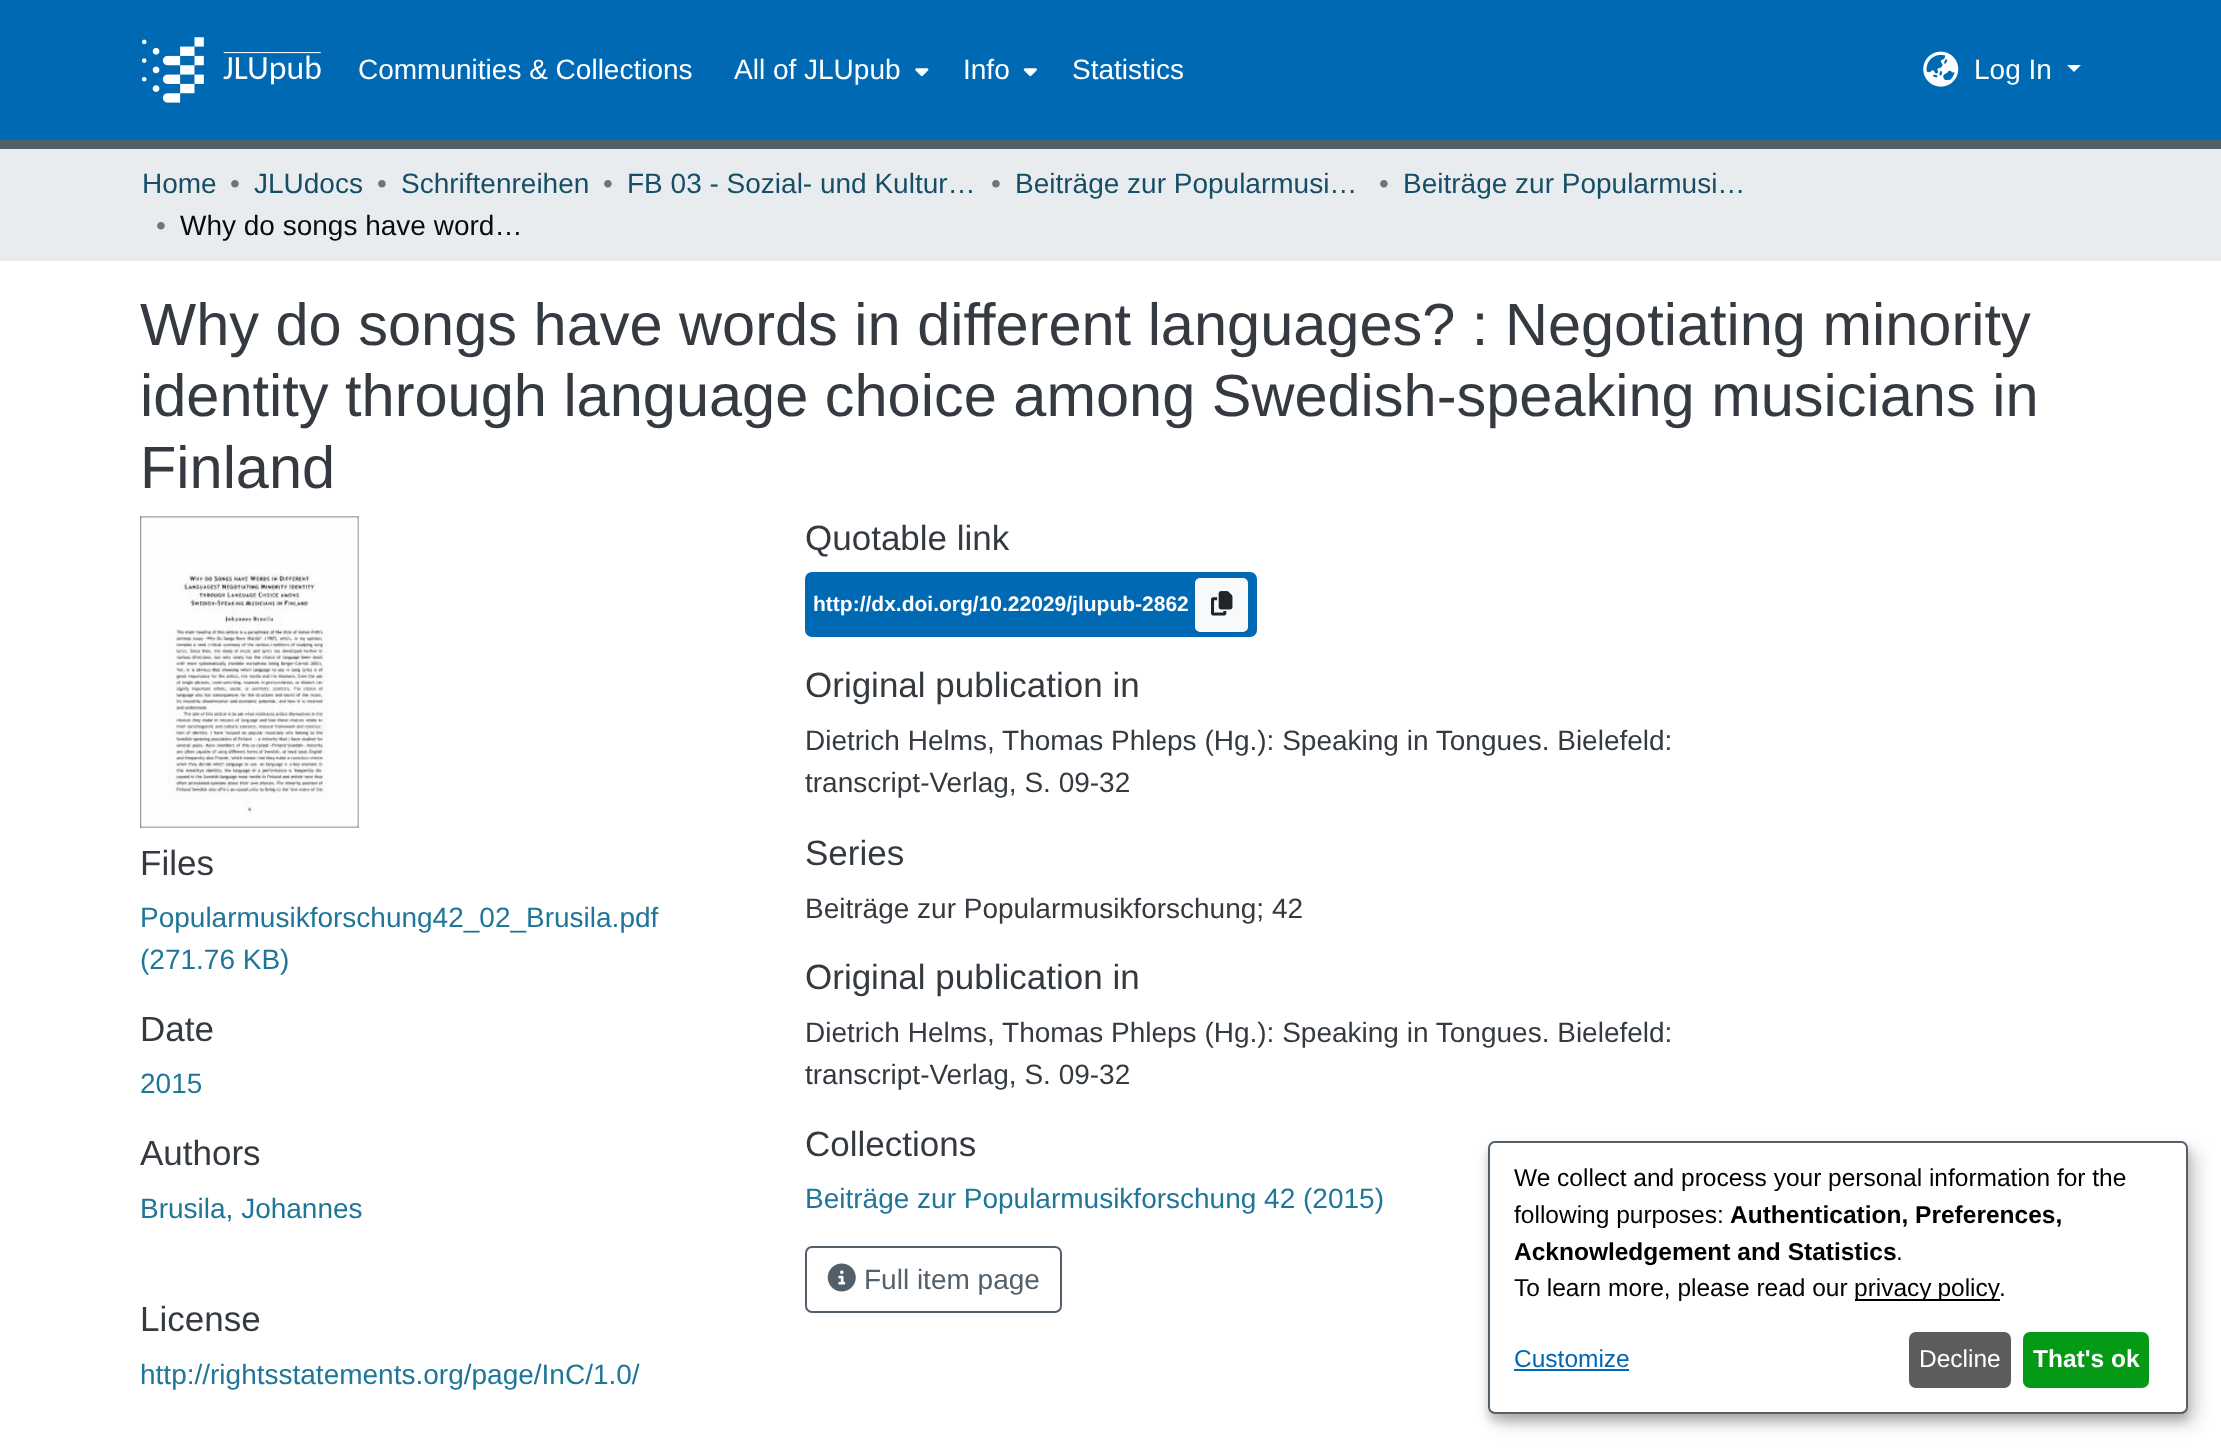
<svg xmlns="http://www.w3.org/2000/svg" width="2221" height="1448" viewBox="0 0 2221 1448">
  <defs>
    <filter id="blur1" x="-50%" y="-200%" width="200%" height="500%"><feGaussianBlur stdDeviation="1"/></filter>
    <filter id="blur2" x="-50%" y="-200%" width="200%" height="500%"><feGaussianBlur stdDeviation="9"/></filter>
    <filter id="blur3" x="-50%" y="-200%" width="200%" height="500%"><feGaussianBlur stdDeviation="5"/></filter>
  </defs>
  <rect width="100%" height="100%" fill="#ffffff"/>
  <rect x="0" y="140" width="2221" height="9" fill="#53606b"/>
  <rect x="0" y="0" width="2221" height="140" fill="#0069b3"/>
  <image x="141" y="37" width="180" height="66" href="img1.png"/>
  <text x="358" y="79" font-family="Liberation Sans" font-size="28" fill="#ffffff">Communities &amp; Collections</text>
  <text x="734" y="79" font-family="Liberation Sans" font-size="28" fill="#ffffff">All of JLUpub</text>
  <image x="915" y="68" width="14" height="9" href="img2.png"/>
  <text x="963" y="79" font-family="Liberation Sans" font-size="28" fill="#ffffff">Info</text>
  <image x="1023" y="68" width="14" height="9" href="img3.png"/>
  <text x="1072" y="79" font-family="Liberation Sans" font-size="28" fill="#ffffff">Statistics</text>
  <image x="1923" y="51" width="36" height="36" href="img4.png"/>
  <text x="1974" y="79" font-family="Liberation Sans" font-size="28" fill="#ffffff">Log In</text>
  <path d="M2067 65H2081L2074 72Z" fill="#ffffff"/>
  <rect x="0" y="149" width="2221" height="112" fill="#e9ecef"/>
  <text x="142" y="193" font-family="Liberation Sans" font-size="28" fill="#154e66">Home</text>
  <text x="230" y="193" font-family="Liberation Sans" font-size="28" fill="#6c757d">•</text>
  <text x="254" y="193" font-family="Liberation Sans" font-size="28" fill="#154e66">JLUdocs</text>
  <text x="377" y="193" font-family="Liberation Sans" font-size="28" fill="#6c757d">•</text>
  <text x="401" y="193" font-family="Liberation Sans" font-size="28" fill="#154e66">Schriftenreihen</text>
  <text x="603" y="193" font-family="Liberation Sans" font-size="28" fill="#6c757d">•</text>
  <text x="627" y="193" font-family="Liberation Sans" font-size="28" fill="#154e66">FB 03 - Sozial- und Kultur…</text>
  <text x="991" y="193" font-family="Liberation Sans" font-size="28" fill="#6c757d">•</text>
  <text x="1015" y="193" font-family="Liberation Sans" font-size="28" fill="#154e66">Beiträge zur Popularmusi…</text>
  <text x="1379" y="193" font-family="Liberation Sans" font-size="28" fill="#6c757d">•</text>
  <text x="1403" y="193" font-family="Liberation Sans" font-size="28" fill="#154e66">Beiträge zur Popularmusi…</text>
  <text x="156" y="235" font-family="Liberation Sans" font-size="28" fill="#6c757d">•</text>
  <text x="180" y="235" font-family="Liberation Sans" font-size="28" fill="#040d11">Why do songs have word…</text>
  <text x="140" y="345" font-family="Liberation Sans" font-size="59.5" fill="#343a40">Why do songs have words in different languages? : Negotiating minority</text>
  <text x="140" y="416" font-family="Liberation Sans" font-size="59.5" fill="#343a40">identity through language choice among Swedish-speaking musicians in</text>
  <text x="140" y="488" font-family="Liberation Sans" font-size="59.5" fill="#343a40">Finland</text>
  <image x="140" y="516" width="219" height="312" href="img5.png"/>
  <text x="140" y="875" font-family="Liberation Sans" font-size="35" fill="#343a40">Files</text>
  <text x="140" y="927" font-family="Liberation Sans" font-size="28" fill="#207698">Popularmusikforschung42_02_Brusila.pdf</text>
  <text x="140" y="969" font-family="Liberation Sans" font-size="28" fill="#207698">(271.76 KB)</text>
  <text x="140" y="1041" font-family="Liberation Sans" font-size="35" fill="#343a40">Date</text>
  <text x="140" y="1093" font-family="Liberation Sans" font-size="28" fill="#207698">2015</text>
  <text x="140" y="1165" font-family="Liberation Sans" font-size="35" fill="#343a40">Authors</text>
  <text x="140" y="1218" font-family="Liberation Sans" font-size="28" fill="#207698">Brusila, Johannes</text>
  <text x="140" y="1331" font-family="Liberation Sans" font-size="35" fill="#343a40">License</text>
  <text x="140" y="1384" font-family="Liberation Sans" font-size="28" fill="#207698">http://rightsstatements.org/page/InC/1.0/</text>
  <text x="805" y="550" font-family="Liberation Sans" font-size="35" fill="#343a40">Quotable link</text>
  <rect x="805" y="572" width="452" height="65" rx="7" fill="#0069b3"/>
  <text x="813" y="611" font-family="Liberation Sans" font-size="21" font-weight="bold" fill="#ffffff">http://dx.doi.org/10.22029/jlupub-2862</text>
  <rect x="1195" y="579" width="53" height="55" rx="5" fill="#000000" fill-opacity="0.07" filter="url(#blur1)"/>
  <rect x="1196" y="579" width="51" height="52" rx="4" fill="#f8f9fa" stroke="#f8f9fa" stroke-width="2"/>
  <image x="1211" y="591" width="22" height="25" href="img6.png"/>
  <text x="805" y="697" font-family="Liberation Sans" font-size="35" fill="#343a40">Original publication in</text>
  <text x="805" y="750" font-family="Liberation Sans" font-size="28" fill="#343a40">Dietrich Helms, Thomas Phleps (Hg.): Speaking in Tongues. Bielefeld:</text>
  <text x="805" y="792" font-family="Liberation Sans" font-size="28" fill="#343a40">transcript-Verlag, S. 09-32</text>
  <text x="805" y="865" font-family="Liberation Sans" font-size="35" fill="#343a40">Series</text>
  <text x="805" y="918" font-family="Liberation Sans" font-size="28" fill="#343a40">Beiträge zur Popularmusikforschung; 42</text>
  <text x="805" y="989" font-family="Liberation Sans" font-size="35" fill="#343a40">Original publication in</text>
  <text x="805" y="1042" font-family="Liberation Sans" font-size="28" fill="#343a40">Dietrich Helms, Thomas Phleps (Hg.): Speaking in Tongues. Bielefeld:</text>
  <text x="805" y="1084" font-family="Liberation Sans" font-size="28" fill="#343a40">transcript-Verlag, S. 09-32</text>
  <text x="805" y="1156" font-family="Liberation Sans" font-size="35" fill="#343a40">Collections</text>
  <text x="805" y="1208" font-family="Liberation Sans" font-size="28" fill="#207698">Beiträge zur Popularmusikforschung 42 (2015)</text>
  <rect x="806" y="1247" width="255" height="65" rx="6" fill="none" stroke="#53606b" stroke-width="2"/>
  <image x="827" y="1263" width="29" height="29" href="img7.png"/>
  <text x="864" y="1289" font-family="Liberation Sans" font-size="28" fill="#53606b">Full item page</text>
  <rect x="1496" y="1150" width="700" height="273" rx="7" fill="#000000" fill-opacity="0.19" filter="url(#blur2)"/>
  <rect x="1488" y="1148" width="700" height="273" rx="7" fill="#000000" fill-opacity="0.2" filter="url(#blur3)"/>
  <rect x="1489" y="1142" width="698" height="271" rx="6" fill="#ffffff" stroke="#53606b" stroke-width="2"/>
  <text x="1514" y="1186" font-family="Liberation Sans" font-size="24.5" fill="#000000">We collect and process your personal information for the</text>
  <text x="1514" y="1223" font-family="Liberation Sans" font-size="24.5" fill="#000000">following purposes:</text>
  <text x="1730" y="1223" font-family="Liberation Sans" font-size="24.5" font-weight="bold" fill="#000000">Authentication, Preferences,</text>
  <text x="1514" y="1260" font-family="Liberation Sans" font-size="24.5" font-weight="bold" fill="#000000">Acknowledgement and Statistics</text>
  <text x="1896" y="1260" font-family="Liberation Sans" font-size="24.5" fill="#000000">.</text>
  <text x="1514" y="1296" font-family="Liberation Sans" font-size="24.5" fill="#000000">To learn more, please read our</text>
  <rect x="1855" y="1299" width="145" height="2" fill="#000000"/>
  <text x="1854" y="1296" word-spacing="-1" font-family="Liberation Sans" font-size="24.5" fill="#000000">privacy policy</text>
  <text x="1999" y="1296" font-family="Liberation Sans" font-size="24.5" fill="#000000">.</text>
  <text x="1514" y="1367" font-family="Liberation Sans" font-size="24.5" fill="#0069b3">Customize</text>
  <rect x="1514" y="1369" width="115" height="2" fill="#0069b3"/>
  <rect x="1909" y="1332" width="102" height="56" rx="7" fill="#5c5c5c"/>
  <text x="1919" y="1367" font-family="Liberation Sans" font-size="24.5" fill="#ffffff">Decline</text>
  <rect x="2023" y="1332" width="126" height="56" rx="7" fill="#049a16"/>
  <text x="2033" y="1367" font-family="Liberation Sans" font-size="24.5" font-weight="bold" fill="#ffffff">That's ok</text>
</svg>
